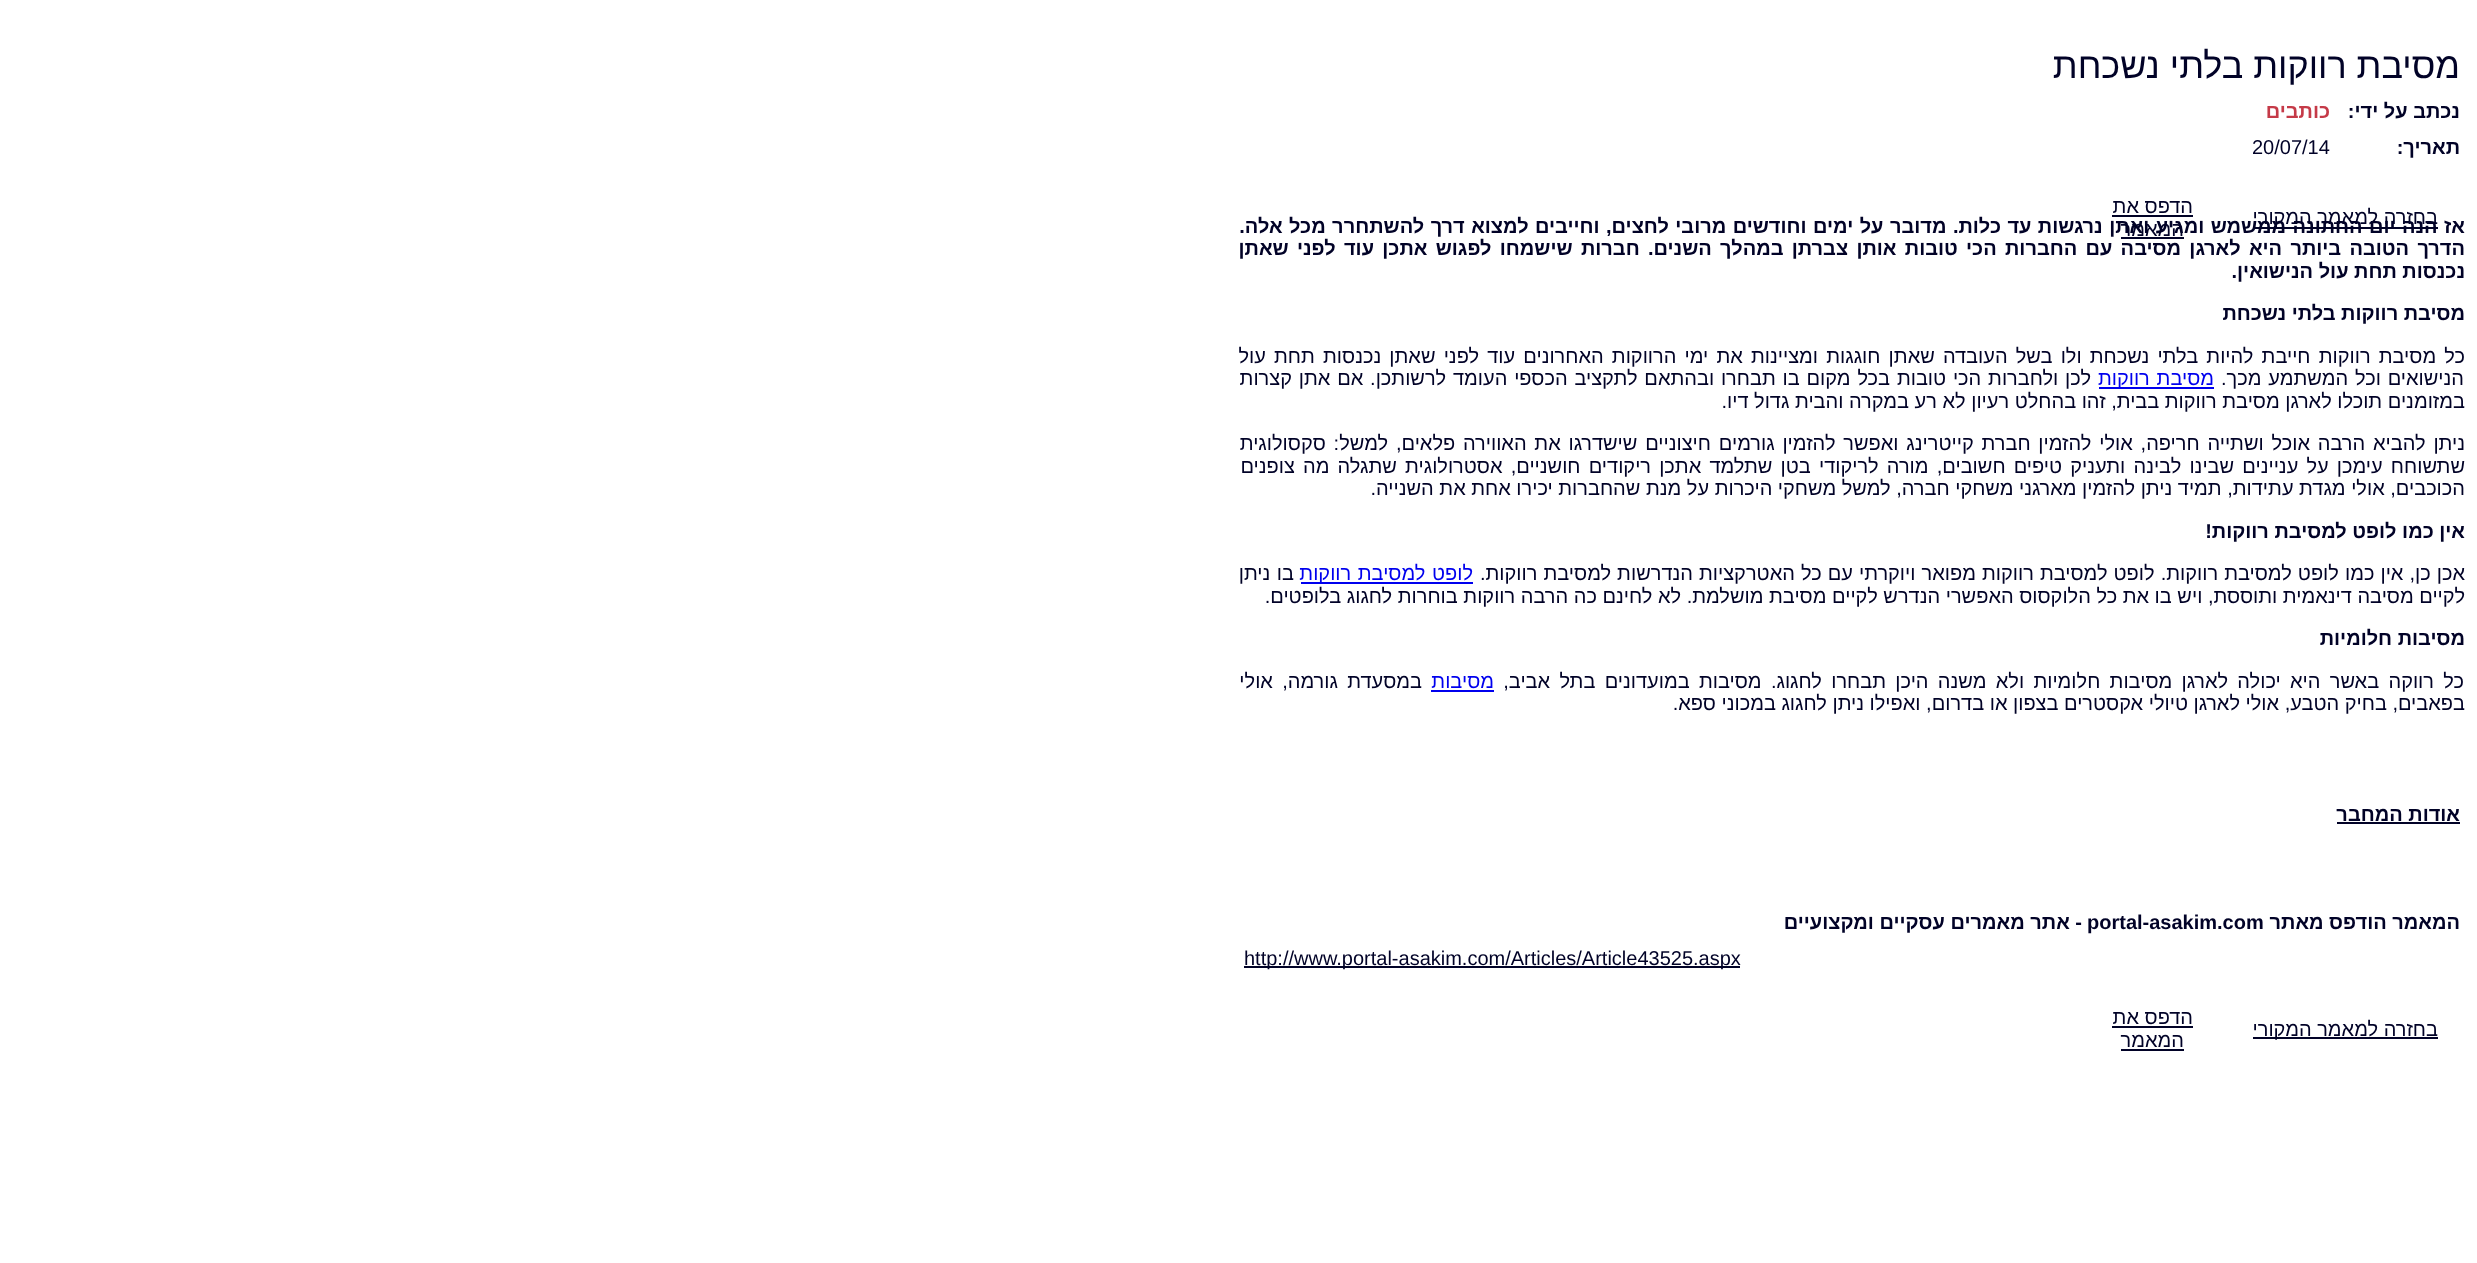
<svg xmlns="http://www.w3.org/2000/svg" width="2477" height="1263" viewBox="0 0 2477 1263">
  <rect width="100%" height="100%" fill="#ffffff"/>
  <text x="2460" y="78" font-family="Liberation Sans" font-size="36" direction="rtl" fill="#010227">מסיבת רווקות בלתי נשכחת</text>
  <text x="2460" y="118" font-family="Liberation Sans" font-size="20" font-weight="bold" direction="rtl" fill="#010227">נכתב על ידי:</text>
  <text x="2330" y="118" font-family="Liberation Sans" font-size="20" font-weight="bold" direction="rtl" fill="#c53a48">כותבים</text>
  <text x="2460" y="154" font-family="Liberation Sans" font-size="20" font-weight="bold" direction="rtl" fill="#010227">תאריך:</text>
  <text x="2252" y="154" font-family="Liberation Sans" font-size="20" fill="#010227">20/07/14</text>
  <rect x="2253" y="227" width="185" height="2" fill="#010227"/>
  <text x="2438" y="224" font-family="Liberation Sans" font-size="20" direction="rtl" fill="#010227">בחזרה למאמר המקורי</text>
  <text x="2193" y="213" font-family="Liberation Sans" font-size="20" direction="rtl" fill="#010227">הדפס את</text>
  <rect x="2112" y="215" width="81" height="2" fill="#010227"/>
  <text x="2184" y="236" font-family="Liberation Sans" font-size="20" direction="rtl" fill="#010227">המאמר</text>
  <rect x="2121" y="237" width="63" height="2" fill="#010227"/>
  <text x="2465" y="233" word-spacing="0.9" font-family="Liberation Sans" font-size="20" font-weight="bold" direction="rtl" fill="#010227">אז הנה יום החתונה ממשמש ומגיע ואתן נרגשות עד כלות. מדובר על ימים וחודשים מרובי לחצים, וחייבים למצוא דרך להשתחרר מכל אלה.</text>
  <text x="2465" y="255" word-spacing="2.75" font-family="Liberation Sans" font-size="20" font-weight="bold" direction="rtl" fill="#010227">הדרך הטובה ביותר היא לארגן מסיבה עם החברות הכי טובות אותן צברתן במהלך השנים. חברות שישמחו לפגוש אתכן עוד לפני שאתן</text>
  <text x="2465" y="278" font-family="Liberation Sans" font-size="20" font-weight="bold" direction="rtl" fill="#010227">נכנסות תחת עול הנישואין.</text>
  <text x="2465" y="320" font-family="Liberation Sans" font-size="20" font-weight="bold" direction="rtl" fill="#010227">מסיבת רווקות בלתי נשכחת</text>
  <text x="2465" y="363" word-spacing="2.6" font-family="Liberation Sans" font-size="20" direction="rtl" fill="#010227">כל מסיבת רווקות חייבת להיות בלתי נשכחת ולו בשל העובדה שאתן חוגגות ומציינות את ימי הרווקות האחרונים עוד לפני שאתן נכנסות תחת עול</text>
  <text x="2464" y="385" word-spacing="1.25" font-family="Liberation Sans" font-size="20" direction="rtl" fill="#010227">הנישואים וכל המשתמע מכך.</text>
  <rect x="2099" y="387" width="115" height="2" fill="#0000ee"/>
  <text x="2214" y="385" word-spacing="1.25" font-family="Liberation Sans" font-size="20" direction="rtl" fill="#0000ee">מסיבת רווקות</text>
  <text x="2091" y="385" word-spacing="1.25" font-family="Liberation Sans" font-size="20" direction="rtl" fill="#010227">לכן ולחברות הכי טובות בכל מקום בו תבחרו ובהתאם לתקציב הכספי העומד לרשותכן. אם אתן קצרות</text>
  <text x="2465" y="408" font-family="Liberation Sans" font-size="20" direction="rtl" fill="#010227">במזומנים תוכלו לארגן מסיבת רווקות בבית, זהו בהחלט רעיון לא רע במקרה והבית גדול דיו.</text>
  <text x="2465" y="450" word-spacing="2.25" font-family="Liberation Sans" font-size="20" direction="rtl" fill="#010227">ניתן להביא הרבה אוכל ושתייה חריפה, אולי להזמין חברת קייטרינג ואפשר להזמין גורמים חיצוניים שישדרגו את האווירה פלאים, למשל: סקסולוגית</text>
  <text x="2465" y="473" word-spacing="2.6" font-family="Liberation Sans" font-size="20" direction="rtl" fill="#010227">שתשוחח עימכן על עניינים שבינו לבינה ותעניק טיפים חשובים, מורה לריקודי בטן שתלמד אתכן ריקודים חושניים, אסטרולוגית שתגלה מה צופנים</text>
  <text x="2465" y="495" font-family="Liberation Sans" font-size="20" direction="rtl" fill="#010227">הכוכבים, אולי מגדת עתידות, תמיד ניתן להזמין מארגני משחקי חברה, למשל משחקי היכרות על מנת שהחברות יכירו אחת את השנייה.</text>
  <text x="2465" y="538" font-family="Liberation Sans" font-size="20" font-weight="bold" direction="rtl" fill="#010227">אין כמו לופט למסיבת רווקות!</text>
  <text x="2465" y="580" word-spacing="0.5" font-family="Liberation Sans" font-size="20" direction="rtl" fill="#010227">אכן כן, אין כמו לופט למסיבת רווקות. לופט למסיבת רווקות מפואר ויוקרתי עם כל האטרקציות הנדרשות למסיבת רווקות.</text>
  <rect x="1301" y="582" width="172" height="2" fill="#0000ee"/>
  <text x="1473" y="580" word-spacing="1" font-family="Liberation Sans" font-size="20" direction="rtl" fill="#0000ee">לופט למסיבת רווקות</text>
  <text x="1294" y="580" word-spacing="1" font-family="Liberation Sans" font-size="20" direction="rtl" fill="#010227">בו ניתן</text>
  <text x="2465" y="603" font-family="Liberation Sans" font-size="20" direction="rtl" fill="#010227">לקיים מסיבה דינאמית ותוססת, ויש בו את כל הלוקסוס האפשרי הנדרש לקיים מסיבת מושלמת. לא לחינם כה הרבה רווקות בוחרות לחגוג בלופטים.</text>
  <text x="2465" y="645" font-family="Liberation Sans" font-size="20" font-weight="bold" direction="rtl" fill="#010227">מסיבות חלומיות</text>
  <text x="2464" y="688" word-spacing="3.75" font-family="Liberation Sans" font-size="20" direction="rtl" fill="#010227">כל רווקה באשר היא יכולה לארגן מסיבות חלומיות ולא משנה היכן תבחרו לחגוג. מסיבות במועדונים בתל אביב,</text>
  <text x="1494" y="688" font-family="Liberation Sans" font-size="20" direction="rtl" fill="#0000ee">מסיבות</text>
  <rect x="1431" y="690" width="63" height="2" fill="#0000ee"/>
  <text x="1422" y="688" word-spacing="3.75" font-family="Liberation Sans" font-size="20" direction="rtl" fill="#010227">במסעדת גורמה, אולי</text>
  <text x="2465" y="710" font-family="Liberation Sans" font-size="20" direction="rtl" fill="#010227">בפאבים, בחיק הטבע, אולי לארגן טיולי אקסטרים בצפון או בדרום, ואפילו ניתן לחגוג במכוני ספא.</text>
  <text x="2460" y="821" font-family="Liberation Sans" font-size="20" font-weight="bold" direction="rtl" fill="#010227">אודות המחבר</text>
  <rect x="2337" y="822" width="123" height="2" fill="#010227"/>
  <text x="2460" y="929" font-family="Liberation Sans" font-size="20" font-weight="bold" direction="rtl" fill="#010227">המאמר הודפס מאתר</text>
  <text x="2087" y="929" font-family="Liberation Sans" font-size="20" font-weight="bold" fill="#010227">portal-asakim.com</text>
  <text x="2082" y="929" font-family="Liberation Sans" font-size="20" font-weight="bold" direction="rtl" fill="#010227">- אתר מאמרים עסקיים ומקצועיים</text>
  <rect x="1244" y="966" width="496" height="2" fill="#010227"/>
  <text x="1244" y="965" font-family="Liberation Sans" font-size="20" fill="#010227">http://www.portal-asakim.com/Articles/Article43525.aspx</text>
  <rect x="2253" y="1037" width="185" height="2" fill="#010227"/>
  <text x="2438" y="1036" font-family="Liberation Sans" font-size="20" direction="rtl" fill="#010227">בחזרה למאמר המקורי</text>
  <text x="2193" y="1024" font-family="Liberation Sans" font-size="20" direction="rtl" fill="#010227">הדפס את</text>
  <rect x="2112" y="1026" width="81" height="2" fill="#010227"/>
  <text x="2184" y="1047" font-family="Liberation Sans" font-size="20" direction="rtl" fill="#010227">המאמר</text>
  <rect x="2121" y="1049" width="63" height="2" fill="#010227"/>
</svg>
